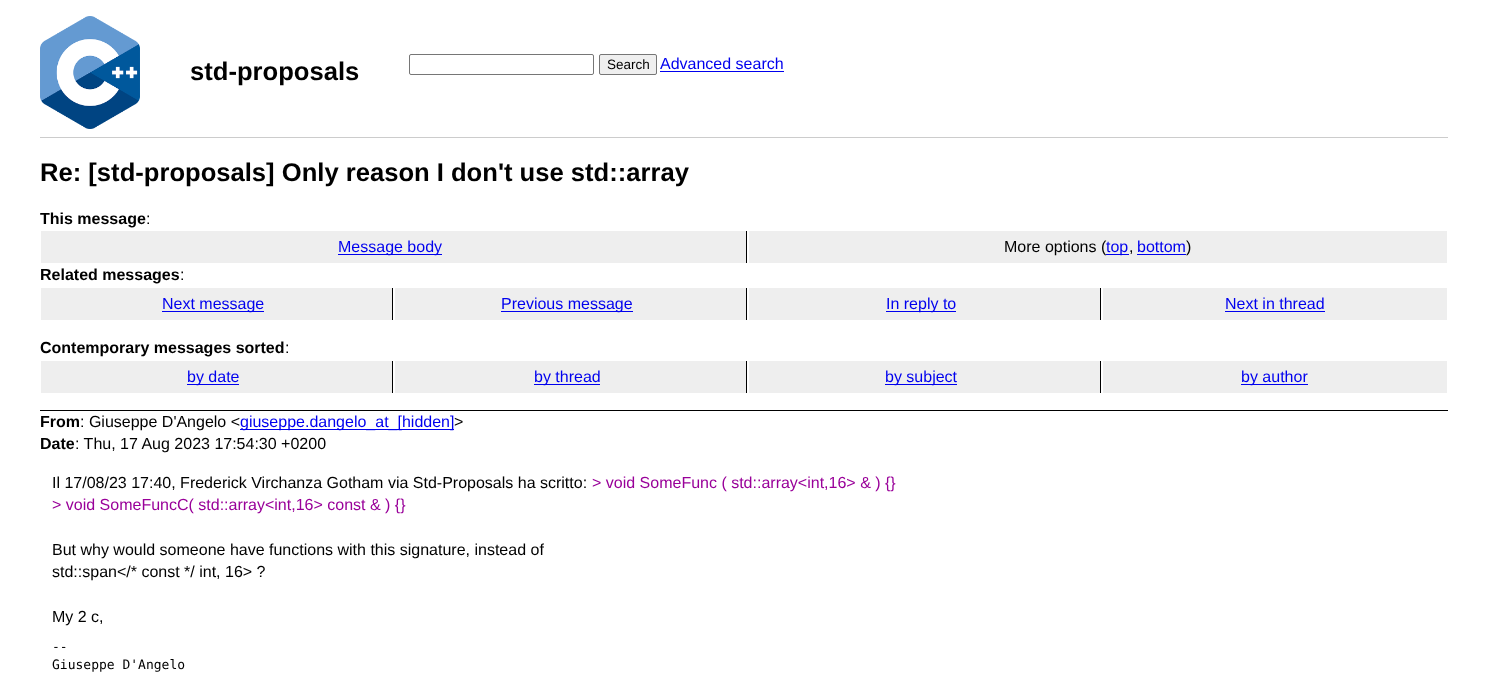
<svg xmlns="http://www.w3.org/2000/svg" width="1488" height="680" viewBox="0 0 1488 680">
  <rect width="100%" height="100%" fill="#ffffff"/>
  <image x="40" y="16" width="100" height="113" href="img1.png"/>
  <text x="190" y="80" font-family="Liberation Sans" font-size="25.6" font-weight="bold" fill="#000000">std-proposals</text>
  <rect x="409.5" y="54.5" width="184" height="20" rx="1.5" fill="none" stroke="#767676"/>
  <rect x="599.5" y="54.5" width="57" height="20" rx="1.5" fill="#efefef" stroke="#767676"/>
  <text x="607" y="69" font-family="Liberation Sans" font-size="13.5" fill="#000000">Search</text>
  <text x="660" y="69" font-family="Liberation Sans" font-size="16" fill="#0000ee">Advanced search</text>
  <rect x="660" y="71" width="124" height="1" fill="#0000ee"/>
  <rect x="40" y="137" width="1408" height="1" fill="#cccccc"/>
  <text x="40" y="181" font-family="Liberation Sans" font-size="25.6" font-weight="bold" fill="#000000">Re: [std-proposals] Only reason I don't use std::array</text>
  <text x="40" y="224" font-family="Liberation Sans" font-size="16" font-weight="bold" fill="#000000">This message</text>
  <text x="146" y="224" font-family="Liberation Sans" font-size="16" fill="#000000">:</text>
  <rect x="41" y="231" width="705" height="32" fill="#eeeeee"/>
  <rect x="746" y="231" width="1" height="32" fill="#000000"/>
  <rect x="338" y="254" width="104" height="1" fill="#0000ee"/>
  <text x="338" y="252" font-family="Liberation Sans" font-size="16" fill="#0000ee">Message body</text>
  <rect x="749" y="231" width="698" height="32" fill="#eeeeee"/>
  <text x="1004" y="252" font-family="Liberation Sans" font-size="16" fill="#000000">More options (</text>
  <rect x="1106" y="254" width="23" height="1" fill="#0000ee"/>
  <text x="1106" y="252" font-family="Liberation Sans" font-size="16" fill="#0000ee">top</text>
  <text x="1129" y="252" font-family="Liberation Sans" font-size="16" fill="#000000">,</text>
  <text x="1137" y="252" font-family="Liberation Sans" font-size="16" fill="#0000ee">bottom</text>
  <rect x="1137" y="254" width="49" height="1" fill="#0000ee"/>
  <text x="1186" y="252" font-family="Liberation Sans" font-size="16" fill="#000000">)</text>
  <text x="40" y="280" font-family="Liberation Sans" font-size="16" font-weight="bold" fill="#000000">Related messages</text>
  <text x="180" y="280" font-family="Liberation Sans" font-size="16" fill="#000000">:</text>
  <rect x="41" y="288" width="351" height="32" fill="#eeeeee"/>
  <rect x="392" y="288" width="1" height="32" fill="#000000"/>
  <rect x="162" y="311" width="102" height="1" fill="#0000ee"/>
  <text x="162" y="309" font-family="Liberation Sans" font-size="16" fill="#0000ee">Next message</text>
  <rect x="395" y="288" width="351" height="32" fill="#eeeeee"/>
  <rect x="746" y="288" width="1" height="32" fill="#000000"/>
  <rect x="501" y="311" width="132" height="1" fill="#0000ee"/>
  <text x="501" y="309" font-family="Liberation Sans" font-size="16" fill="#0000ee">Previous message</text>
  <rect x="749" y="288" width="351" height="32" fill="#eeeeee"/>
  <rect x="1100" y="288" width="1" height="32" fill="#000000"/>
  <rect x="886" y="311" width="70" height="1" fill="#0000ee"/>
  <text x="886" y="309" font-family="Liberation Sans" font-size="16" fill="#0000ee">In reply to</text>
  <rect x="1103" y="288" width="344" height="32" fill="#eeeeee"/>
  <text x="1225" y="309" font-family="Liberation Sans" font-size="16" fill="#0000ee">Next in thread</text>
  <rect x="1225" y="311" width="100" height="1" fill="#0000ee"/>
  <text x="40" y="353" font-family="Liberation Sans" font-size="16" font-weight="bold" fill="#000000">Contemporary messages sorted</text>
  <text x="285" y="353" font-family="Liberation Sans" font-size="16" fill="#000000">:</text>
  <rect x="41" y="361" width="351" height="32" fill="#eeeeee"/>
  <rect x="392" y="361" width="1" height="32" fill="#000000"/>
  <rect x="187" y="384" width="52" height="1" fill="#0000ee"/>
  <text x="187" y="382" font-family="Liberation Sans" font-size="16" fill="#0000ee">by date</text>
  <rect x="395" y="361" width="351" height="32" fill="#eeeeee"/>
  <rect x="746" y="361" width="1" height="32" fill="#000000"/>
  <rect x="534" y="384" width="66" height="1" fill="#0000ee"/>
  <text x="534" y="382" font-family="Liberation Sans" font-size="16" fill="#0000ee">by thread</text>
  <rect x="749" y="361" width="351" height="32" fill="#eeeeee"/>
  <rect x="1100" y="361" width="1" height="32" fill="#000000"/>
  <rect x="885" y="384" width="72" height="1" fill="#0000ee"/>
  <text x="885" y="382" font-family="Liberation Sans" font-size="16" fill="#0000ee">by subject</text>
  <rect x="1103" y="361" width="344" height="32" fill="#eeeeee"/>
  <rect x="1241" y="384" width="67" height="1" fill="#0000ee"/>
  <text x="1241" y="382" font-family="Liberation Sans" font-size="16" fill="#0000ee">by author</text>
  <rect x="40" y="410" width="1408" height="1" fill="#000000"/>
  <text x="40" y="427" font-family="Liberation Sans" font-size="16" font-weight="bold" fill="#000000">From</text>
  <text x="80" y="427" font-family="Liberation Sans" font-size="16" fill="#000000">: Giuseppe D'Angelo &lt;</text>
  <rect x="240" y="429" width="214" height="1" fill="#0000ee"/>
  <text x="240" y="427" font-family="Liberation Sans" font-size="16" fill="#0000ee">giuseppe.dangelo_at_[hidden]</text>
  <text x="454" y="427" font-family="Liberation Sans" font-size="16" fill="#000000">&gt;</text>
  <text x="40" y="449" font-family="Liberation Sans" font-size="16" font-weight="bold" fill="#000000">Date</text>
  <text x="75" y="449" font-family="Liberation Sans" font-size="16" fill="#000000">: Thu, 17 Aug 2023 17:54:30 +0200</text>
  <text x="52" y="488" font-family="Liberation Sans" font-size="16" fill="#000000">Il 17/08/23 17:40, Frederick Virchanza Gotham via Std-Proposals ha scritto:</text>
  <text x="592" y="488" font-family="Liberation Sans" font-size="16" fill="#990099">&gt; void SomeFunc ( std::array&lt;int,16&gt; &amp; ) {}</text>
  <text x="52" y="510" font-family="Liberation Sans" font-size="16" fill="#990099">&gt; void SomeFuncC( std::array&lt;int,16&gt; const &amp; ) {}</text>
  <text x="52" y="555" font-family="Liberation Sans" font-size="16" fill="#000000">But why would someone have functions with this signature, instead of</text>
  <text x="52" y="577" font-family="Liberation Sans" font-size="16" fill="#000000">std::span&lt;/* const */ int, 16&gt; ?</text>
  <text x="52" y="622" font-family="Liberation Sans" font-size="16" fill="#000000">My 2 c,</text>
  <text x="52" y="651" font-family="DejaVu Sans Mono" font-size="13" fill="#000000">--</text>
  <text x="52" y="669" font-family="DejaVu Sans Mono" font-size="13" fill="#000000">Giuseppe D'Angelo</text>
</svg>
